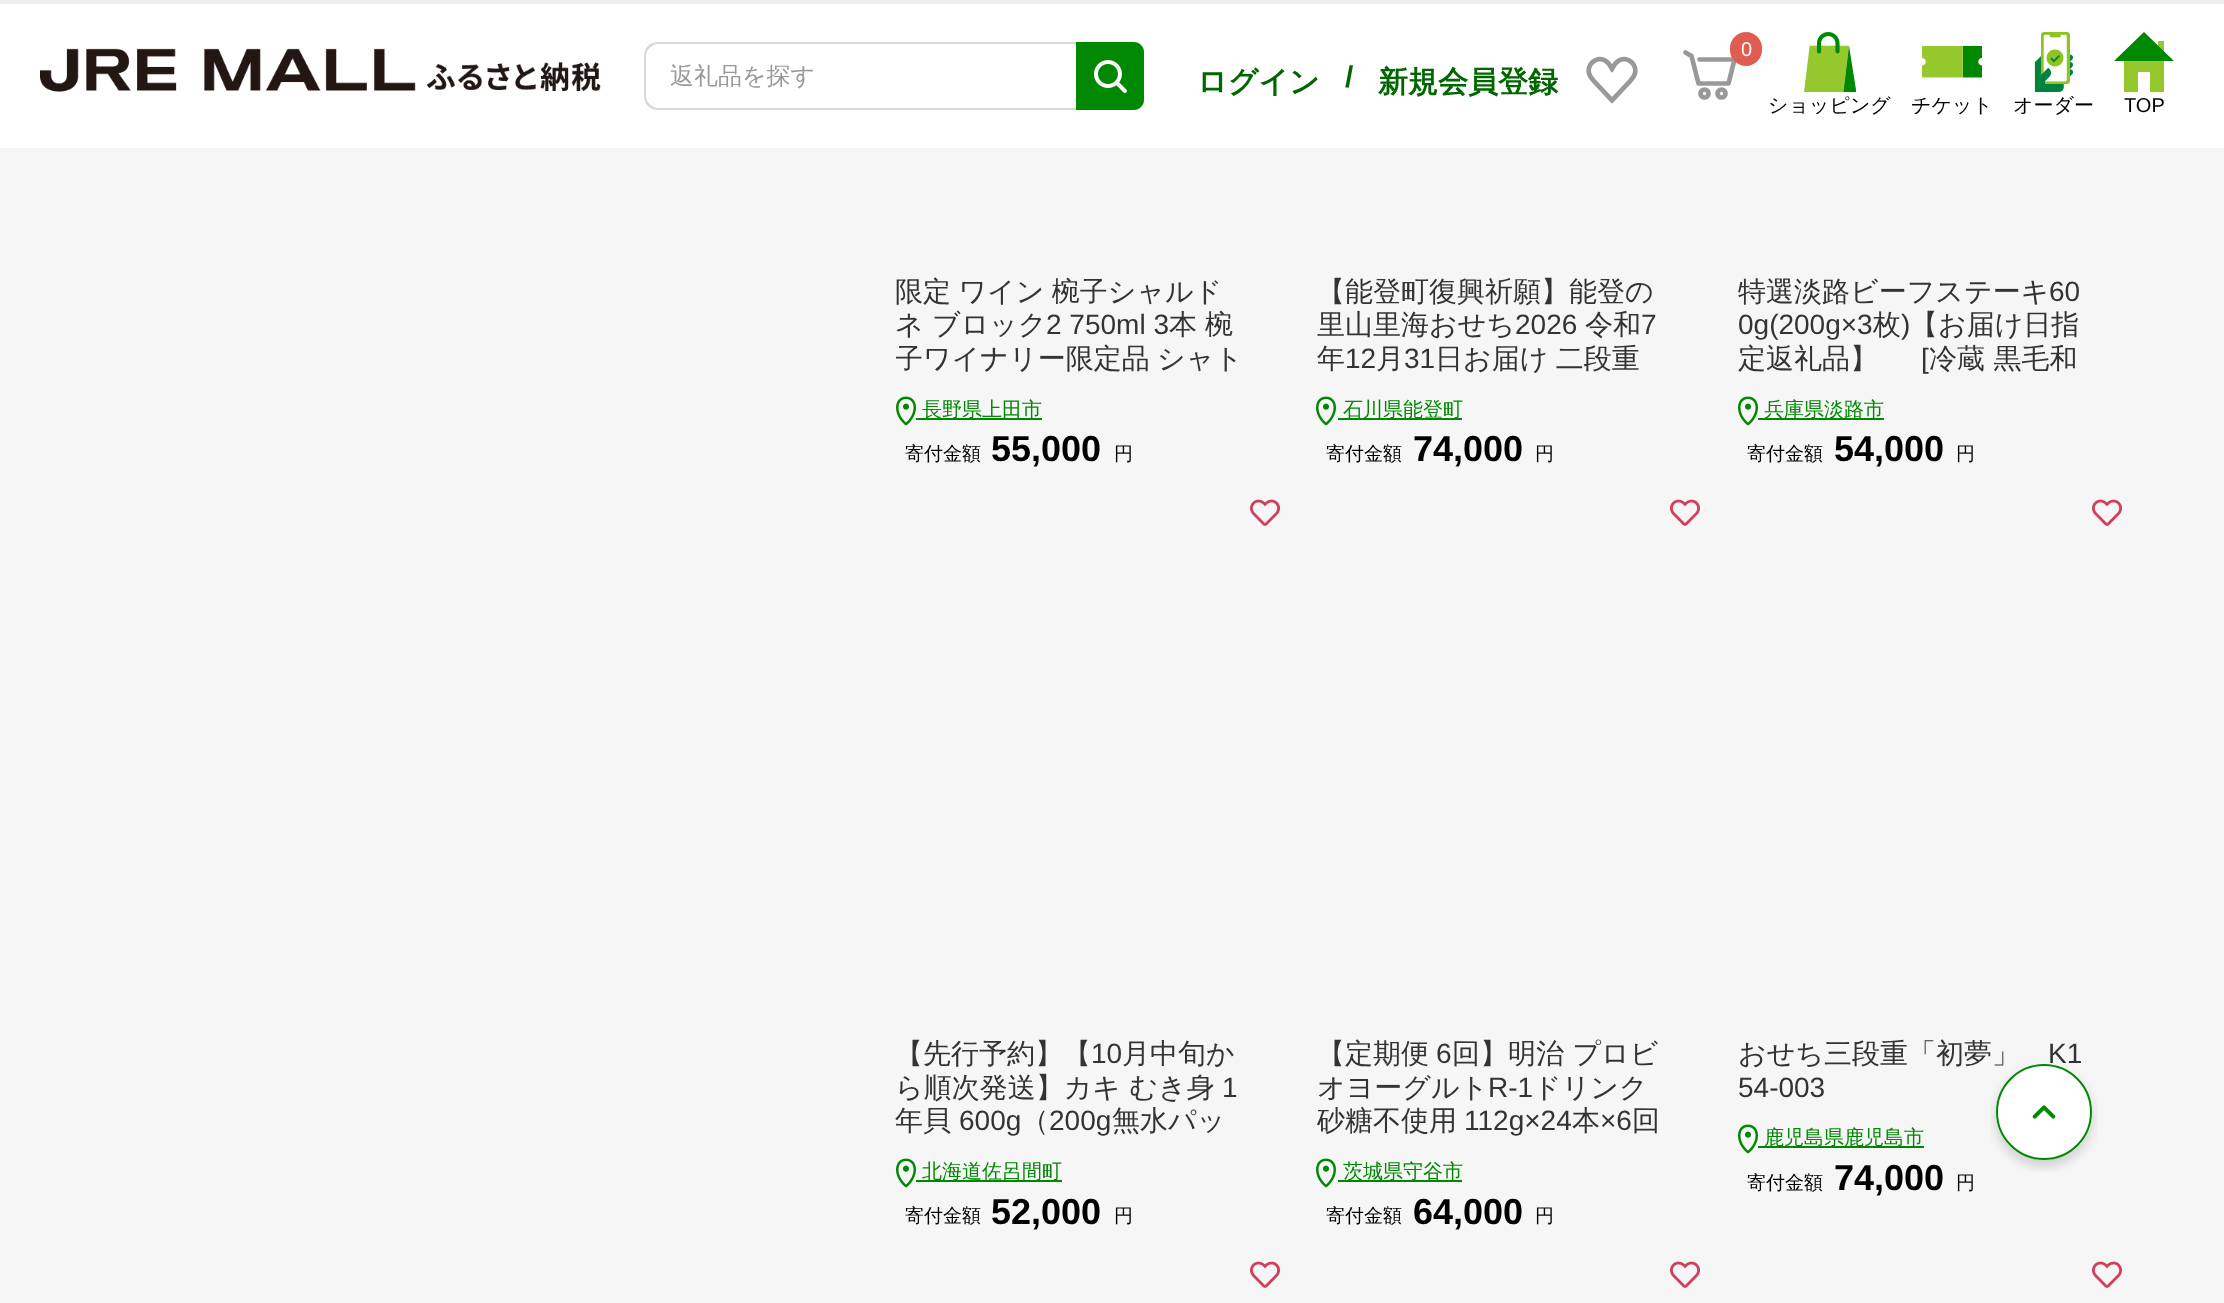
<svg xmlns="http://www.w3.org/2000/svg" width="2224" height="1303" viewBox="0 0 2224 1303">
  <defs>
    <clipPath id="clip1"><rect x="896" y="274" width="350" height="102"/></clipPath>
  </defs>
  <rect width="100%" height="100%" fill="#f6f6f6"/>
  <rect x="0" y="4" width="2224" height="144" fill="#ffffff"/>
  <rect x="0" y="0" width="2224" height="4" fill="#eeeeee"/>
  <image x="40" y="48" width="561" height="44" href="img1.png"/>
  <path d="M658 42H1076V110H658C650 110 644 104 644 96V56C644 48 650 42 658 42ZM658 44H1076V108H658C652 108 646 102 646 96V56C646 50 652 44 658 44Z" fill="#d8d8d8" fill-rule="evenodd"/>
  <text x="670" y="84" font-family="WenQuanYi Zen Hei" font-size="24" font-weight="500" fill="#999999">返礼品を探す</text>
  <path d="M1076 42H1134C1139.5 42 1144 46.5 1144 52V100C1144 105.5 1139.5 110 1134 110H1076Z" fill="#008803"/>
  <image x="1094" y="60" width="33" height="33" href="img2.png"/>
  <path d="M1699.5 59.5H1734.5L1728.5 83.5H1698.5L1691.5 56L1685.5 52.5" fill="none" stroke="#999999" stroke-width="4.7" stroke-linecap="round" stroke-linejoin="round"/>
  <rect x="1730" y="32" width="32" height="34" rx="16" fill="#de5d50"/>
  <text x="1741" y="56" font-family="Liberation Sans" font-size="20" fill="#ffffff">0</text>
  <circle cx="1704.5" cy="93.5" r="4" fill="none" stroke="#999999" stroke-width="4.7"/>
  <circle cx="1721.5" cy="93.5" r="4" fill="none" stroke="#999999" stroke-width="4.7"/>
  <text x="1197" y="92" font-family="WenQuanYi Zen Hei" font-size="30" font-weight="bold" fill="#006600">ログイン</text>
  <text x="1345" y="87" font-family="Liberation Sans" font-size="30" font-weight="bold" fill="#006600">/</text>
  <text x="1378" y="92" font-family="WenQuanYi Zen Hei" font-size="30" font-weight="bold" fill="#006600">新規会員登録</text>
  <image x="1586" y="56" width="52" height="48" href="img3.png"/>
  <image x="1804" y="32" width="52" height="60" href="img4.png"/>
  <text x="1768" y="112" font-family="WenQuanYi Zen Hei" font-size="20" font-weight="500" fill="#000000">ショッピング</text>
  <image x="1922" y="46" width="60" height="32" href="img5.png"/>
  <text x="1911" y="112" font-family="WenQuanYi Zen Hei" font-size="20" font-weight="500" fill="#000000">チケット</text>
  <image x="2034" y="32" width="40" height="60" href="img6.png"/>
  <text x="2013" y="112" font-family="WenQuanYi Zen Hei" font-size="20" font-weight="500" fill="#000000">オーダー</text>
  <rect x="2158" y="41" width="6" height="13" fill="#95c82d"/>
  <path d="M2144 32L2114 61H2174Z" fill="#008803"/>
  <path d="M2124 61V92H2138V72H2150V92H2164V61Z" fill="#95c82d"/>
  <text x="2124" y="112" font-family="Liberation Sans" font-size="20" fill="#000000">TOP</text>
  <text x="895" y="301" word-spacing="-1" font-family="WenQuanYi Zen Hei" font-size="28" font-weight="500" fill="#333333">限定 ワイン 椀子シャルド</text>
  <text x="895" y="334" font-family="WenQuanYi Zen Hei" font-size="28" font-weight="500" fill="#333333">ネ</text>
  <text x="932" y="334" font-family="WenQuanYi Zen Hei" font-size="28" font-weight="500" fill="#333333">ブロック</text>
  <text x="1046" y="334" font-family="Liberation Sans" font-size="28" fill="#333333">2 750ml 3</text>
  <text x="1169" y="334" font-family="WenQuanYi Zen Hei" font-size="28" font-weight="500" fill="#333333">本</text>
  <text x="1205" y="334" font-family="WenQuanYi Zen Hei" font-size="28" font-weight="500" fill="#333333">椀</text>
  <g clip-path="url(#clip1)">
    <text x="895" y="368" word-spacing="-1" font-family="WenQuanYi Zen Hei" font-size="28" font-weight="500" fill="#333333">子ワイナリー限定品 シャト</text>
  </g>
  <image x="896" y="396" width="20" height="30" href="img7.png"/>
  <rect x="916" y="418" width="126" height="2" fill="#008803"/>
  <text x="922" y="416" font-family="WenQuanYi Zen Hei" font-size="20" font-weight="500" fill="#008803">長野県上田市</text>
  <text x="905" y="460" font-family="WenQuanYi Zen Hei" font-size="19" font-weight="500" fill="#000000">寄付金額</text>
  <text x="991" y="461" font-family="Liberation Sans" font-size="36" font-weight="bold" fill="#000000">55,000</text>
  <text x="1114" y="460" font-family="WenQuanYi Zen Hei" font-size="19" font-weight="500" fill="#000000">円</text>
  <image x="1250" y="499" width="30" height="27" href="img8.png"/>
  <text x="1317" y="301" font-family="WenQuanYi Zen Hei" font-size="28" font-weight="500" fill="#333333">【能登町復興祈願】能登の</text>
  <text x="1317" y="334" font-family="WenQuanYi Zen Hei" font-size="28" font-weight="500" fill="#333333">里山里海おせち</text>
  <text x="1515" y="334" font-family="Liberation Sans" font-size="28" fill="#333333">2026</text>
  <text x="1585" y="334" font-family="WenQuanYi Zen Hei" font-size="28" font-weight="500" fill="#333333">令和</text>
  <text x="1641" y="334" font-family="Liberation Sans" font-size="28" fill="#333333">7</text>
  <text x="1317" y="368" font-family="WenQuanYi Zen Hei" font-size="28" font-weight="500" fill="#333333">年</text>
  <text x="1345" y="368" font-family="Liberation Sans" font-size="28" fill="#333333">12</text>
  <text x="1376" y="368" font-family="WenQuanYi Zen Hei" font-size="28" font-weight="500" fill="#333333">月</text>
  <text x="1404" y="368" font-family="Liberation Sans" font-size="28" fill="#333333">31</text>
  <text x="1435" y="368" word-spacing="-1" font-family="WenQuanYi Zen Hei" font-size="28" font-weight="500" fill="#333333">日お届け 二段重</text>
  <image x="1316" y="396" width="20" height="30" href="img7.png"/>
  <rect x="1338" y="418" width="124" height="2" fill="#008803"/>
  <text x="1343" y="416" font-family="WenQuanYi Zen Hei" font-size="20" font-weight="500" fill="#008803">石川県能登町</text>
  <text x="1326" y="460" font-family="WenQuanYi Zen Hei" font-size="19" font-weight="500" fill="#000000">寄付金額</text>
  <text x="1413" y="461" font-family="Liberation Sans" font-size="36" font-weight="bold" fill="#000000">74,000</text>
  <text x="1535" y="460" font-family="WenQuanYi Zen Hei" font-size="19" font-weight="500" fill="#000000">円</text>
  <image x="1670" y="499" width="30" height="27" href="img8.png"/>
  <text x="1738" y="301" font-family="WenQuanYi Zen Hei" font-size="28" font-weight="500" fill="#333333">特選淡路ビーフステーキ</text>
  <text x="2049" y="301" font-family="Liberation Sans" font-size="28" fill="#333333">60</text>
  <text x="1738" y="334" font-family="Liberation Sans" font-size="28" fill="#333333">0g(200g×3</text>
  <text x="1873" y="334" font-family="WenQuanYi Zen Hei" font-size="28" font-weight="500" fill="#333333">枚</text>
  <text x="1901" y="334" font-family="Liberation Sans" font-size="28" fill="#333333">)</text>
  <text x="1910" y="334" font-family="WenQuanYi Zen Hei" font-size="28" font-weight="500" fill="#333333">【お届け日指</text>
  <text x="1738" y="368" font-family="WenQuanYi Zen Hei" font-size="28" font-weight="500" fill="#333333">定返礼品】</text>
  <text x="1921" y="368" font-family="Liberation Sans" font-size="28" fill="#333333">[</text>
  <text x="1929" y="368" font-family="WenQuanYi Zen Hei" font-size="28" font-weight="500" fill="#333333">冷蔵 黒毛和</text>
  <image x="1738" y="396" width="20" height="30" href="img7.png"/>
  <rect x="1758" y="418" width="126" height="2" fill="#008803"/>
  <text x="1764" y="416" font-family="WenQuanYi Zen Hei" font-size="20" font-weight="500" fill="#008803">兵庫県淡路市</text>
  <text x="1747" y="460" font-family="WenQuanYi Zen Hei" font-size="19" font-weight="500" fill="#000000">寄付金額</text>
  <text x="1834" y="461" font-family="Liberation Sans" font-size="36" font-weight="bold" fill="#000000">54,000</text>
  <text x="1956" y="460" font-family="WenQuanYi Zen Hei" font-size="19" font-weight="500" fill="#000000">円</text>
  <image x="2092" y="499" width="30" height="27" href="img8.png"/>
  <text x="895" y="1063" font-family="WenQuanYi Zen Hei" font-size="28" font-weight="500" fill="#333333">【先行予約】【</text>
  <text x="1091" y="1063" font-family="Liberation Sans" font-size="28" fill="#333333">10</text>
  <text x="1122" y="1063" font-family="WenQuanYi Zen Hei" font-size="28" font-weight="500" fill="#333333">月中旬か</text>
  <text x="895" y="1097" font-family="WenQuanYi Zen Hei" font-size="28" font-weight="500" fill="#333333">ら順次発送】カキ むき身</text>
  <text x="1222" y="1097" font-family="Liberation Sans" font-size="28" fill="#333333">1</text>
  <text x="895" y="1130" font-family="WenQuanYi Zen Hei" font-size="28" font-weight="500" fill="#333333">年貝</text>
  <text x="959" y="1130" font-family="Liberation Sans" font-size="28" fill="#333333">600g</text>
  <text x="1021" y="1130" font-family="WenQuanYi Zen Hei" font-size="28" font-weight="500" fill="#333333">（</text>
  <text x="1049" y="1130" font-family="Liberation Sans" font-size="28" fill="#333333">200g</text>
  <text x="1112" y="1130" font-family="WenQuanYi Zen Hei" font-size="28" font-weight="500" fill="#333333">無水パッ</text>
  <image x="896" y="1158" width="20" height="30" href="img7.png"/>
  <rect x="916" y="1180" width="146" height="2" fill="#008803"/>
  <text x="922" y="1178" font-family="WenQuanYi Zen Hei" font-size="20" font-weight="500" fill="#008803">北海道佐呂間町</text>
  <text x="905" y="1222" font-family="WenQuanYi Zen Hei" font-size="19" font-weight="500" fill="#000000">寄付金額</text>
  <text x="991" y="1224" font-family="Liberation Sans" font-size="36" font-weight="bold" fill="#000000">52,000</text>
  <text x="1114" y="1222" font-family="WenQuanYi Zen Hei" font-size="19" font-weight="500" fill="#000000">円</text>
  <image x="1250" y="1261" width="30" height="27" href="img8.png"/>
  <text x="1317" y="1063" font-family="WenQuanYi Zen Hei" font-size="28" font-weight="500" fill="#333333">【定期便</text>
  <text x="1436" y="1063" font-family="Liberation Sans" font-size="28" fill="#333333">6</text>
  <text x="1452" y="1063" font-family="WenQuanYi Zen Hei" font-size="28" font-weight="500" fill="#333333">回】明治 プロビ</text>
  <text x="1317" y="1097" font-family="WenQuanYi Zen Hei" font-size="28" font-weight="500" fill="#333333">オヨーグルト</text>
  <text x="1488" y="1097" font-family="Liberation Sans" font-size="28" fill="#333333">R-1</text>
  <text x="1533" y="1097" font-family="WenQuanYi Zen Hei" font-size="28" font-weight="500" fill="#333333">ドリンク</text>
  <text x="1317" y="1130" font-family="WenQuanYi Zen Hei" font-size="28" font-weight="500" fill="#333333">砂糖不使用</text>
  <text x="1464" y="1130" font-family="Liberation Sans" font-size="28" fill="#333333">112g×24</text>
  <text x="1572" y="1130" font-family="WenQuanYi Zen Hei" font-size="28" font-weight="500" fill="#333333">本</text>
  <text x="1600" y="1130" font-family="Liberation Sans" font-size="28" fill="#333333">×6</text>
  <text x="1632" y="1130" font-family="WenQuanYi Zen Hei" font-size="28" font-weight="500" fill="#333333">回</text>
  <image x="1316" y="1158" width="20" height="30" href="img7.png"/>
  <rect x="1338" y="1180" width="124" height="2" fill="#008803"/>
  <text x="1343" y="1178" font-family="WenQuanYi Zen Hei" font-size="20" font-weight="500" fill="#008803">茨城県守谷市</text>
  <text x="1326" y="1222" font-family="WenQuanYi Zen Hei" font-size="19" font-weight="500" fill="#000000">寄付金額</text>
  <text x="1413" y="1224" font-family="Liberation Sans" font-size="36" font-weight="bold" fill="#000000">64,000</text>
  <text x="1535" y="1222" font-family="WenQuanYi Zen Hei" font-size="19" font-weight="500" fill="#000000">円</text>
  <image x="1670" y="1261" width="30" height="27" href="img8.png"/>
  <text x="1738" y="1063" font-family="WenQuanYi Zen Hei" font-size="28" font-weight="500" fill="#333333">おせち三段重「初夢」</text>
  <text x="2048" y="1063" font-family="Liberation Sans" font-size="28" fill="#333333">K1</text>
  <text x="1738" y="1097" font-family="Liberation Sans" font-size="28" fill="#333333">54-003</text>
  <image x="1738" y="1124" width="20" height="30" href="img7.png"/>
  <rect x="1758" y="1146" width="166" height="2" fill="#008803"/>
  <text x="1764" y="1144" font-family="WenQuanYi Zen Hei" font-size="20" font-weight="500" fill="#008803">鹿児島県鹿児島市</text>
  <text x="1747" y="1189" font-family="WenQuanYi Zen Hei" font-size="19" font-weight="500" fill="#000000">寄付金額</text>
  <text x="1834" y="1190" font-family="Liberation Sans" font-size="36" font-weight="bold" fill="#000000">74,000</text>
  <text x="1956" y="1189" font-family="WenQuanYi Zen Hei" font-size="19" font-weight="500" fill="#000000">円</text>
  <image x="2092" y="1261" width="30" height="27" href="img8.png"/>
  <image x="1990" y="1064" width="108" height="108" href="img9.png"/>
</svg>
